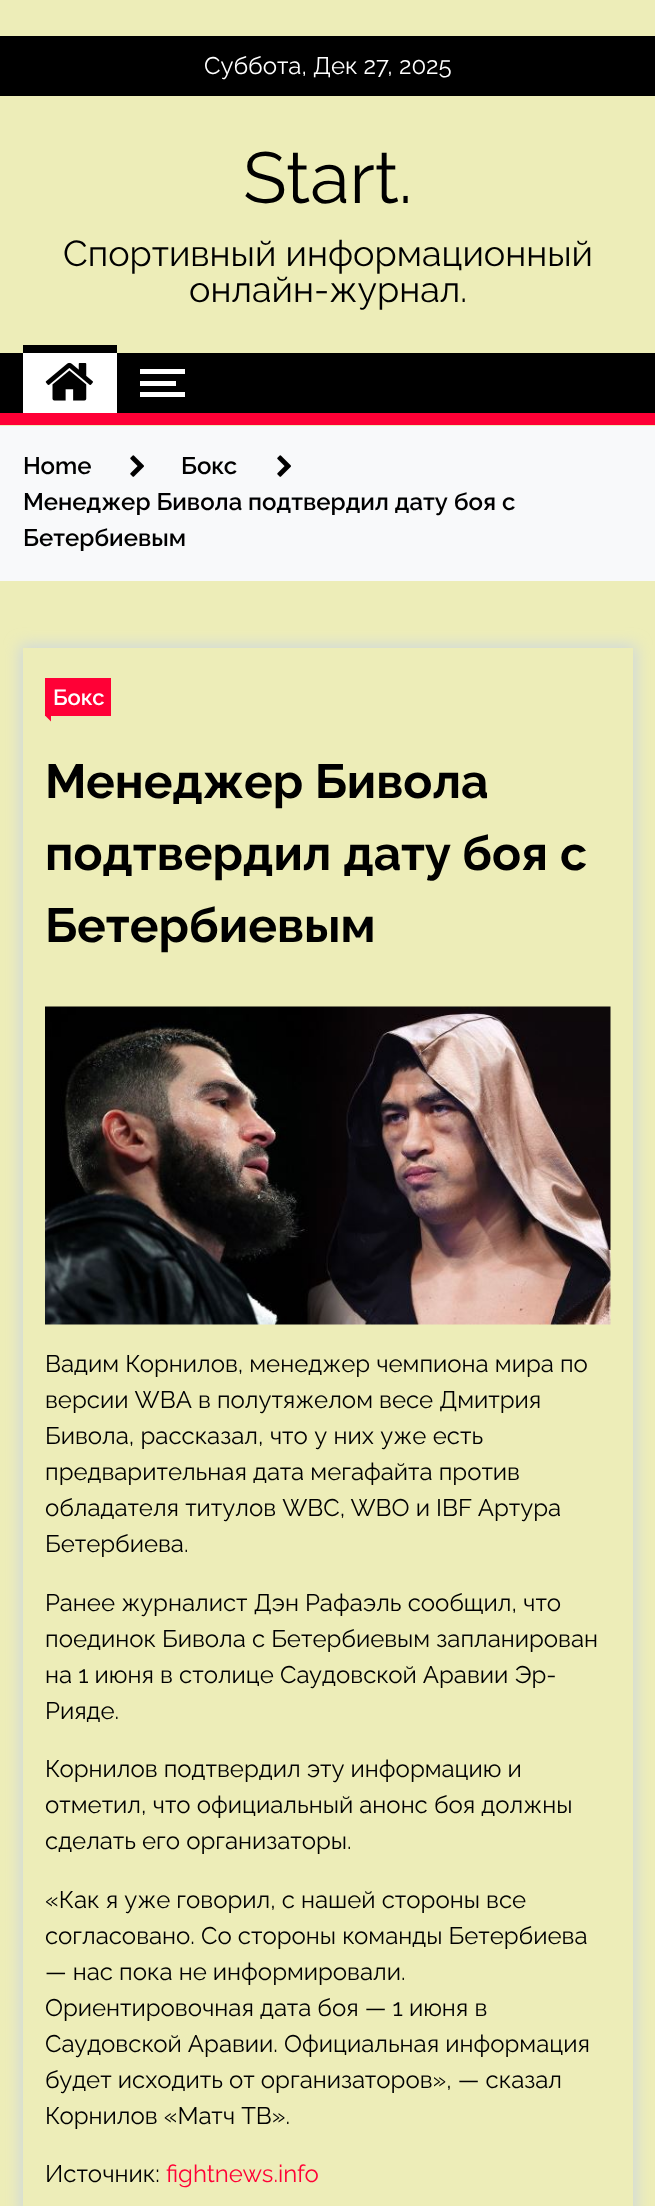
<svg xmlns="http://www.w3.org/2000/svg" width="655" height="2206" viewBox="0 0 655 2206">
  <defs>
    <clipPath id="clip1"><path d="M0 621H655V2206H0ZM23 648H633V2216H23Z" clip-rule="evenodd"/></clipPath>
    <filter id="blur1" x="-50%" y="-200%" width="200%" height="500%"><feGaussianBlur stdDeviation="7.5"/></filter>
  </defs>
  <rect width="100%" height="100%" fill="#ededb8"/>
  <rect x="0" y="36" width="655" height="60" fill="#000000"/>
  <text x="204" y="74" font-family="Raleway" font-size="24" fill="#ffffff">Суббота, Дек 27, 2025</text>
  <text x="243" y="203" font-family="Raleway" font-size="72" fill="#000000">Start.</text>
  <text x="63" y="266" font-family="Raleway" font-size="36" fill="#000000">Спортивный информационный</text>
  <text x="189" y="302" font-family="Raleway" font-size="36" fill="#000000">онлайн-журнал.</text>
  <rect x="0" y="353" width="655" height="60" fill="#000000"/>
  <rect x="23" y="353" width="94" height="60" fill="#ffffff"/>
  <rect x="23" y="345" width="94" height="8" fill="#000000"/>
  <image x="45" y="362" width="48" height="39" href="img1.png"/>
  <rect x="140" y="369" width="45" height="5" fill="#ffffff"/>
  <rect x="140" y="392" width="45" height="5" fill="#ffffff"/>
  <rect x="140" y="381" width="36" height="5" fill="#ffffff"/>
  <rect x="0" y="413" width="655" height="12" fill="#ff0036"/>
  <rect x="0" y="426" width="655" height="155" fill="#f8f9fa"/>
  <text x="23" y="474" font-family="Raleway" font-size="24" font-weight="600" fill="#000000">Home</text>
  <image x="130" y="455" width="14" height="22" href="img2.png"/>
  <text x="181" y="474" font-family="Raleway" font-size="24" font-weight="600" fill="#000000">Бокс</text>
  <image x="277" y="455" width="14" height="22" href="img2.png"/>
  <text x="23" y="510" font-family="Raleway" font-size="24" font-weight="600" fill="#000000">Менеджер Бивола подтвердил дату боя с</text>
  <text x="23" y="546" font-family="Raleway" font-size="24" font-weight="600" fill="#000000">Бетербиевым</text>
  <g clip-path="url(#clip1)">
    <rect x="20" y="645" width="616" height="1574" fill="#cfd8dc" filter="url(#blur1)"/>
  </g>
  <rect x="45" y="678" width="66" height="38" fill="#ff0036"/>
  <text x="53" y="705" font-family="Raleway" font-size="22" font-weight="600" fill="#ffffff">Бокс</text>
  <path d="M51 715.5V721.5L45 715.5Z" fill="#ff0036"/>
  <text x="45" y="798" font-family="Raleway" font-size="48" font-weight="bold" fill="#000000">Менеджер Бивола</text>
  <text x="45" y="870" word-spacing="0.5" font-family="Raleway" font-size="48" font-weight="bold" fill="#000000">подтвердил дату боя с</text>
  <text x="45" y="942" font-family="Raleway" font-size="48" font-weight="bold" fill="#000000">Бетербиевым</text>
  <image x="45" y="1006" width="566" height="319" href="img3.png"/>
  <text x="45" y="1372" font-family="Raleway" font-size="24" fill="#000000">Вадим Корнилов, менеджер чемпиона мира по</text>
  <text x="45" y="1408" font-family="Raleway" font-size="24" fill="#000000">версии WBA в полутяжелом весе Дмитрия</text>
  <text x="45" y="1444" word-spacing="0.25" font-family="Raleway" font-size="24" fill="#000000">Бивола, рассказал, что у них уже есть</text>
  <text x="45" y="1480" font-family="Raleway" font-size="24" fill="#000000">предварительная дата мегафайта против</text>
  <text x="45" y="1516" font-family="Raleway" font-size="24" fill="#000000">обладателя титулов WBC, WBO и IBF Артура</text>
  <text x="45" y="1552" font-family="Raleway" font-size="24" fill="#000000">Бетербиева.</text>
  <text x="45" y="1611" font-family="Raleway" font-size="24" fill="#000000">Ранее журналист Дэн Рафаэль сообщил, что</text>
  <text x="45" y="1647" font-family="Raleway" font-size="24" fill="#000000">поединок Бивола с Бетербиевым запланирован</text>
  <text x="45" y="1683" font-family="Raleway" font-size="24" fill="#000000">на 1 июня в столице Саудовской Аравии Эр-</text>
  <text x="45" y="1719" font-family="Raleway" font-size="24" fill="#000000">Рияде.</text>
  <text x="45" y="1777" font-family="Raleway" font-size="24" fill="#000000">Корнилов подтвердил эту информацию и</text>
  <text x="45" y="1813" font-family="Raleway" font-size="24" fill="#000000">отметил, что официальный анонс боя должны</text>
  <text x="45" y="1849" font-family="Raleway" font-size="24" fill="#000000">сделать его организаторы.</text>
  <text x="45" y="1908" font-family="Raleway" font-size="24" fill="#000000">«Как я уже говорил, с нашей стороны все</text>
  <text x="45" y="1944" font-family="Raleway" font-size="24" fill="#000000">согласовано. Со стороны команды Бетербиева</text>
  <text x="45" y="1980" font-family="Raleway" font-size="24" fill="#000000">— нас пока не информировали.</text>
  <text x="45" y="2016" font-family="Raleway" font-size="24" fill="#000000">Ориентировочная дата боя — 1 июня в</text>
  <text x="45" y="2052" font-family="Raleway" font-size="24" fill="#000000">Саудовской Аравии. Официальная информация</text>
  <text x="45" y="2088" font-family="Raleway" font-size="24" fill="#000000">будет исходить от организаторов», — сказал</text>
  <text x="45" y="2124" font-family="Raleway" font-size="24" fill="#000000">Корнилов «Матч ТВ».</text>
  <text x="45" y="2182" font-family="Raleway" font-size="24" fill="#000000">Источник:</text>
  <text x="166" y="2182" font-family="Raleway" font-size="24" fill="#ff0036">fightnews.info</text>
</svg>
